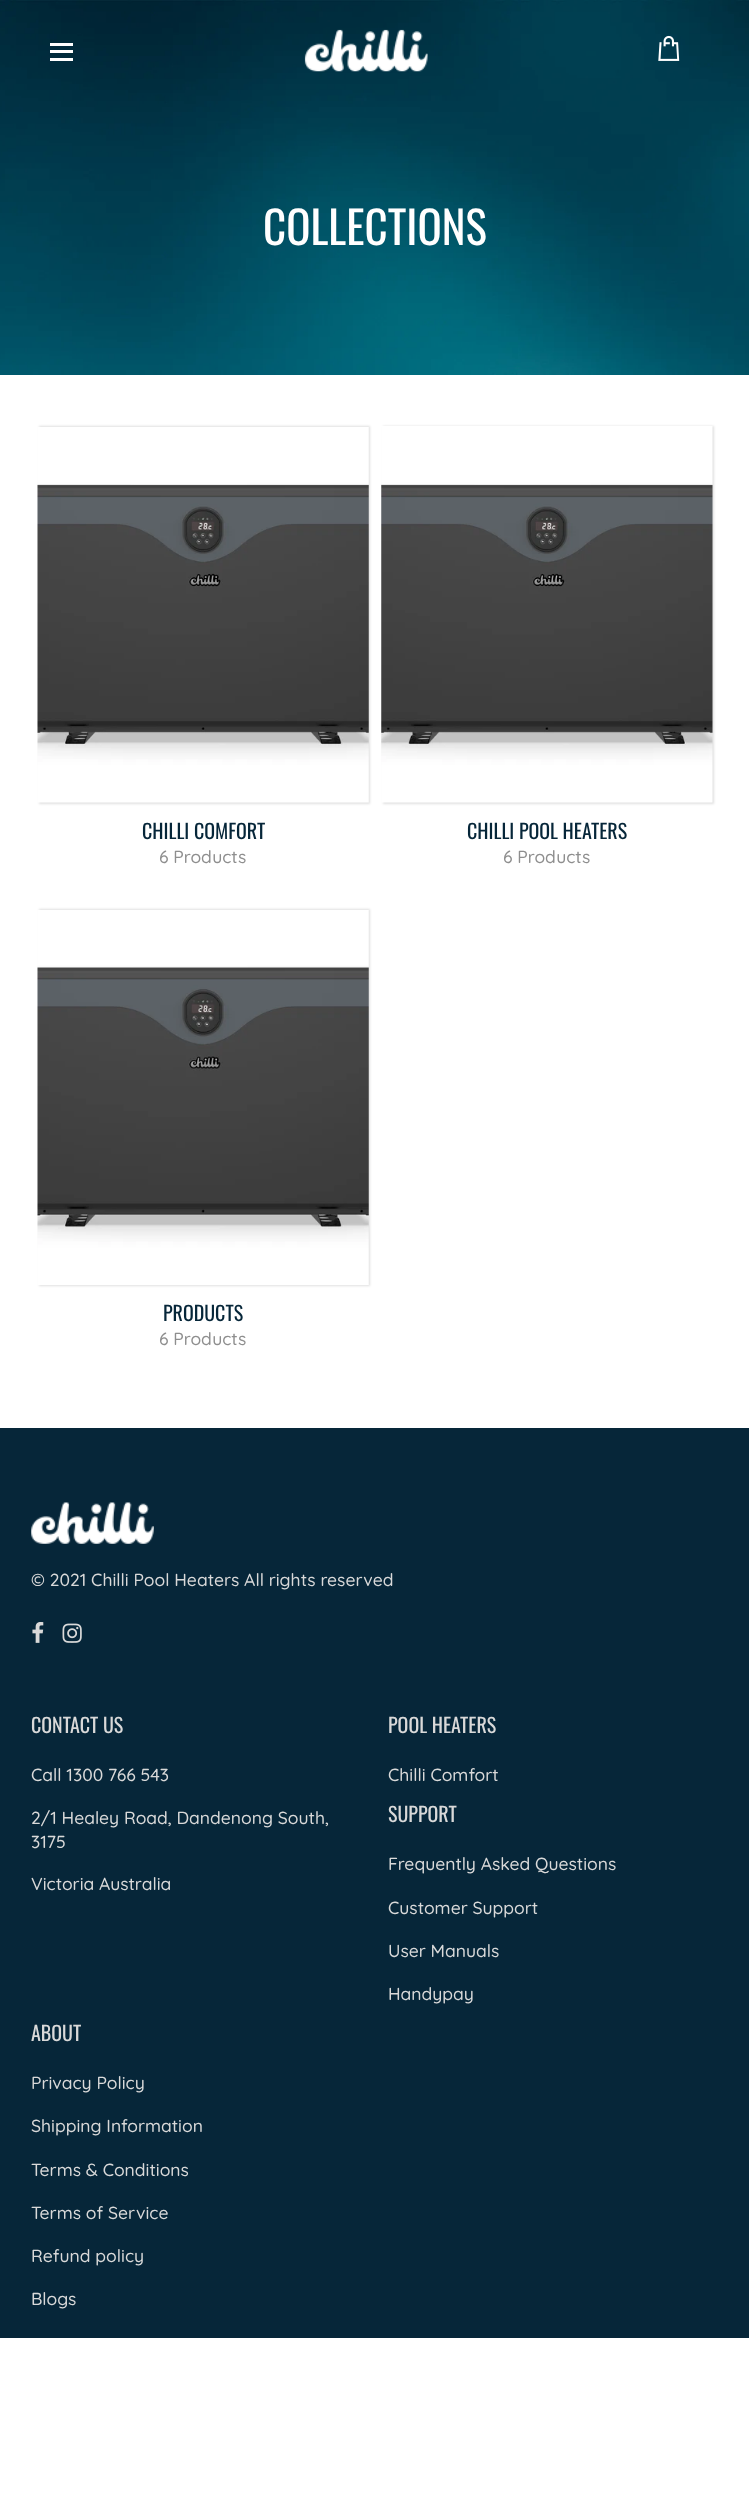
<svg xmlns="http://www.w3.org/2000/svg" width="749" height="2515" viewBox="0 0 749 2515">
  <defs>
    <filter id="blur1" x="-50%" y="-200%" width="200%" height="500%"><feGaussianBlur stdDeviation="1"/></filter>
  </defs>
  <rect width="100%" height="100%" fill="#ffffff"/>
  <image x="0" y="0" width="749" height="375" href="img3.png"/>
  <rect x="50" y="50" width="23" height="3" fill="#ffffff"/>
  <rect x="50" y="43" width="23" height="3" fill="#ffffff"/>
  <rect x="50" y="58" width="23" height="3" fill="#ffffff"/>
  <image x="304" y="29" width="124" height="43" href="img1.png"/>
  <image x="658" y="35" width="22" height="26" href="img2.png"/>
  <text x="263" y="245" font-family="Oswald" font-size="45" fill="#ffffff">COLLECTIONS</text>
  <rect x="39" y="426" width="331" height="378" fill="#000000" fill-opacity="0.12" filter="url(#blur1)"/>
  <image x="37" y="427" width="332" height="376" href="img4.png"/>
  <text x="142" y="839" font-family="Oswald" font-size="20" fill="#062639">CHILLI COMFORT</text>
  <text x="159" y="863" font-family="Quicksand" font-size="17.5" font-weight="500" fill="#8e8e8e">6 Products</text>
  <rect x="383" y="426" width="331" height="378" fill="#000000" fill-opacity="0.12" filter="url(#blur1)"/>
  <image x="381" y="426" width="332" height="377" href="img5.png"/>
  <text x="467" y="839" font-family="Oswald" font-size="20" fill="#062639">CHILLI POOL HEATERS</text>
  <text x="503" y="863" font-family="Quicksand" font-size="17.5" font-weight="500" fill="#8e8e8e">6 Products</text>
  <rect x="39" y="909" width="331" height="377" fill="#000000" fill-opacity="0.12" filter="url(#blur1)"/>
  <image x="37" y="910" width="332" height="375" href="img6.png"/>
  <text x="163" y="1321" font-family="Oswald" font-size="20" fill="#062639">PRODUCTS</text>
  <text x="159" y="1345" font-family="Quicksand" font-size="17.5" font-weight="500" fill="#8e8e8e">6 Products</text>
  <rect x="0" y="1428" width="749" height="910" fill="#062639"/>
  <image x="31" y="1502" width="123" height="42" href="img7.png"/>
  <text x="31" y="1586" font-family="Quicksand" font-size="17.5" font-weight="500" fill="#d9d9d9">© 2021 Chilli Pool Heaters All rights reserved</text>
  <image x="32" y="1622" width="12" height="21" href="img8.png"/>
  <image x="62" y="1623" width="20" height="20" href="img9.png"/>
  <text x="31" y="1733" font-family="Oswald" font-size="20" fill="#d9d9d9">CONTACT US</text>
  <text x="31" y="1781" font-family="Quicksand" font-size="17.5" font-weight="500" fill="#d9d9d9">Call 1300 766 543</text>
  <text x="31" y="1824" font-family="Quicksand" font-size="17.5" font-weight="500" fill="#d9d9d9">2/1 Healey Road, Dandenong South,</text>
  <text x="31" y="1848" font-family="Quicksand" font-size="17.5" font-weight="500" fill="#d9d9d9">3175</text>
  <text x="31" y="1890" font-family="Quicksand" font-size="17.5" font-weight="500" fill="#d9d9d9">Victoria Australia</text>
  <text x="388" y="1733" font-family="Oswald" font-size="20" fill="#d9d9d9">POOL HEATERS</text>
  <text x="388" y="1781" font-family="Quicksand" font-size="17.5" font-weight="500" fill="#d9d9d9">Chilli Comfort</text>
  <text x="388" y="1822" font-family="Oswald" font-size="20" fill="#d9d9d9">SUPPORT</text>
  <text x="388" y="1870" font-family="Quicksand" font-size="17.5" font-weight="500" fill="#d9d9d9">Frequently Asked Questions</text>
  <text x="388" y="1914" font-family="Quicksand" font-size="17.5" font-weight="500" fill="#d9d9d9">Customer Support</text>
  <text x="388" y="1957" font-family="Quicksand" font-size="17.5" font-weight="500" fill="#d9d9d9">User Manuals</text>
  <text x="388" y="2000" font-family="Quicksand" font-size="17.5" font-weight="500" fill="#d9d9d9">Handypay</text>
  <text x="31" y="2041" font-family="Oswald" font-size="20" fill="#d9d9d9">ABOUT</text>
  <text x="31" y="2089" font-family="Quicksand" font-size="17.5" font-weight="500" fill="#d9d9d9">Privacy Policy</text>
  <text x="31" y="2132" font-family="Quicksand" font-size="17.5" font-weight="500" fill="#d9d9d9">Shipping Information</text>
  <text x="31" y="2176" font-family="Quicksand" font-size="17.5" font-weight="500" fill="#d9d9d9">Terms &amp; Conditions</text>
  <text x="31" y="2219" font-family="Quicksand" font-size="17.5" font-weight="500" fill="#d9d9d9">Terms of Service</text>
  <text x="31" y="2262" font-family="Quicksand" font-size="17.5" font-weight="500" fill="#d9d9d9">Refund policy</text>
  <text x="31" y="2305" font-family="Quicksand" font-size="17.5" font-weight="500" fill="#d9d9d9">Blogs</text>
</svg>
